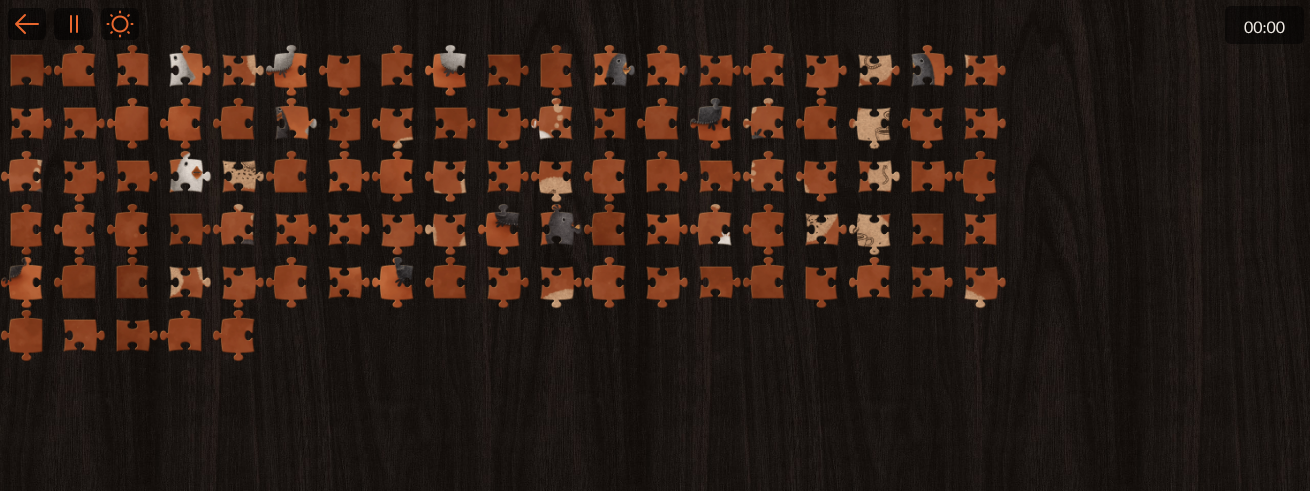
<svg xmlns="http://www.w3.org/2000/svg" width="1310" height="491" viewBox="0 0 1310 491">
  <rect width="100%" height="100%" fill="#ffffff"/>
  <image x="0" y="0" width="1310" height="491" href="img1.png"/>
  <rect x="8" y="8" width="38" height="32" rx="6" fill="#000000" fill-opacity="0.5"/>
  <path d="M38 24H16M25 15L16 24L25 33" fill="none" stroke="#ea672e" stroke-width="2" stroke-linecap="round" stroke-linejoin="round"/>
  <rect x="54" y="8" width="39" height="32" rx="6" fill="#000000" fill-opacity="0.5"/>
  <path d="M71 16V32M77 16V32" fill="none" stroke="#ea672e" stroke-width="2" stroke-linecap="round" stroke-linejoin="round"/>
  <rect x="101" y="8" width="38" height="32" rx="6" fill="#000000" fill-opacity="0.5"/>
  <image x="106" y="10" width="28" height="28" href="img2.png"/>
  <rect x="1225" y="6" width="79" height="38" rx="6" fill="#000000" fill-opacity="0.5"/>
  <text x="1244" y="33" font-family="Lato" font-size="16" fill="#efeae4">00:00</text>
  <image x="10" y="54" width="43" height="33" href="img3.png"/>
  <image x="53" y="44" width="43" height="43" href="img4.png"/>
  <image x="116" y="44" width="33" height="43" href="img5.png"/>
  <image x="169" y="44" width="43" height="43" href="img6.png"/>
  <image x="222" y="54" width="43" height="33" href="img7.png"/>
  <image x="265" y="44" width="43" height="53" href="img8.png"/>
  <image x="318" y="54" width="43" height="43" href="img9.png"/>
  <image x="381" y="44" width="33" height="43" href="img10.png"/>
  <image x="424" y="44" width="43" height="53" href="img11.png"/>
  <image x="487" y="54" width="43" height="33" href="img12.png"/>
  <image x="540" y="44" width="33" height="53" href="img13.png"/>
  <image x="593" y="44" width="42" height="43" href="img14.png"/>
  <image x="646" y="44" width="42" height="43" href="img15.png"/>
  <image x="699" y="54" width="43" height="33" href="img16.png"/>
  <image x="742" y="44" width="43" height="43" href="img17.png"/>
  <image x="805" y="54" width="43" height="43" href="img18.png"/>
  <image x="858" y="54" width="43" height="33" href="img19.png"/>
  <image x="911" y="44" width="43" height="43" href="img20.png"/>
  <image x="964" y="54" width="43" height="33" href="img21.png"/>
  <image x="10" y="107" width="43" height="33" href="img22.png"/>
  <image x="63" y="107" width="43" height="33" href="img23.png"/>
  <image x="106" y="97" width="43" height="53" href="img24.png"/>
  <image x="159" y="97" width="43" height="53" href="img25.png"/>
  <image x="212" y="97" width="43" height="43" href="img26.png"/>
  <image x="275" y="97" width="43" height="43" href="img27.png"/>
  <image x="328" y="107" width="33" height="43" href="img28.png"/>
  <image x="371" y="107" width="43" height="43" href="img29.png"/>
  <image x="434" y="107" width="43" height="33" href="img30.png"/>
  <image x="487" y="107" width="43" height="43" href="img31.png"/>
  <image x="530" y="97" width="43" height="43" href="img32.png"/>
  <image x="593" y="107" width="33" height="33" href="img33.png"/>
  <image x="636" y="97" width="43" height="43" href="img34.png"/>
  <image x="690" y="98" width="42" height="52" href="img35.png"/>
  <image x="742" y="97" width="43" height="43" href="img36.png"/>
  <image x="795" y="97" width="43" height="43" href="img37.png"/>
  <image x="848" y="107" width="43" height="43" href="img38.png"/>
  <image x="901" y="107" width="43" height="43" href="img39.png"/>
  <image x="964" y="107" width="43" height="33" href="img40.png"/>
  <image x="0" y="150" width="43" height="43" href="img41.png"/>
  <image x="63" y="160" width="43" height="43" href="img42.png"/>
  <image x="116" y="160" width="43" height="33" href="img43.png"/>
  <image x="169" y="150" width="43" height="43" href="img44.png"/>
  <image x="222" y="160" width="43" height="33" href="img45.png"/>
  <image x="265" y="150" width="43" height="43" href="img46.png"/>
  <image x="328" y="150" width="43" height="43" href="img47.png"/>
  <image x="371" y="150" width="43" height="53" href="img48.png"/>
  <image x="424" y="160" width="43" height="43" href="img49.png"/>
  <image x="487" y="160" width="43" height="33" href="img50.png"/>
  <image x="530" y="160" width="43" height="43" href="img51.png"/>
  <image x="583" y="150" width="43" height="53" href="img52.png"/>
  <image x="646" y="150" width="43" height="43" href="img53.png"/>
  <image x="699" y="160" width="43" height="33" href="img54.png"/>
  <image x="742" y="150" width="43" height="43" href="img55.png"/>
  <image x="795" y="160" width="43" height="43" href="img56.png"/>
  <image x="858" y="160" width="43" height="33" href="img57.png"/>
  <image x="911" y="160" width="43" height="33" href="img58.png"/>
  <image x="954" y="150" width="43" height="53" href="img59.png"/>
  <image x="10" y="203" width="33" height="53" href="img60.png"/>
  <image x="53" y="203" width="43" height="53" href="img61.png"/>
  <image x="106" y="203" width="43" height="53" href="img62.png"/>
  <image x="169" y="213" width="43" height="33" href="img63.png"/>
  <image x="212" y="203" width="43" height="43" href="img64.png"/>
  <image x="275" y="213" width="43" height="33" href="img65.png"/>
  <image x="328" y="213" width="43" height="33" href="img66.png"/>
  <image x="381" y="213" width="43" height="43" href="img67.png"/>
  <image x="424" y="213" width="43" height="43" href="img68.png"/>
  <image x="477" y="204" width="43" height="52" href="img69.png"/>
  <image x="540" y="203" width="42" height="43" href="img70.png"/>
  <image x="583" y="203" width="43" height="43" href="img71.png"/>
  <image x="646" y="213" width="43" height="33" href="img72.png"/>
  <image x="689" y="203" width="43" height="43" href="img73.png"/>
  <image x="742" y="203" width="43" height="53" href="img74.png"/>
  <image x="805" y="213" width="43" height="33" href="img75.png"/>
  <image x="848" y="213" width="43" height="43" href="img76.png"/>
  <image x="911" y="213" width="33" height="33" href="img77.png"/>
  <image x="964" y="213" width="33" height="33" href="img78.png"/>
  <image x="0" y="256" width="43" height="53" href="img79.png"/>
  <image x="53" y="256" width="43" height="43" href="img80.png"/>
  <image x="116" y="256" width="33" height="43" href="img81.png"/>
  <image x="169" y="266" width="43" height="33" href="img82.png"/>
  <image x="222" y="266" width="43" height="43" href="img83.png"/>
  <image x="265" y="256" width="43" height="53" href="img84.png"/>
  <image x="328" y="266" width="43" height="33" href="img85.png"/>
  <image x="371" y="257" width="43" height="52" href="img86.png"/>
  <image x="424" y="256" width="43" height="43" href="img87.png"/>
  <image x="487" y="266" width="43" height="43" href="img88.png"/>
  <image x="540" y="266" width="43" height="43" href="img89.png"/>
  <image x="583" y="256" width="43" height="53" href="img90.png"/>
  <image x="646" y="266" width="43" height="43" href="img91.png"/>
  <image x="699" y="266" width="43" height="33" href="img92.png"/>
  <image x="742" y="256" width="43" height="43" href="img93.png"/>
  <image x="805" y="266" width="33" height="43" href="img94.png"/>
  <image x="848" y="256" width="43" height="43" href="img95.png"/>
  <image x="911" y="266" width="43" height="33" href="img96.png"/>
  <image x="964" y="266" width="43" height="43" href="img97.png"/>
  <image x="0" y="309" width="43" height="53" href="img98.png"/>
  <image x="63" y="319" width="43" height="33" href="img99.png"/>
  <image x="116" y="319" width="43" height="33" href="img100.png"/>
  <image x="159" y="309" width="43" height="43" href="img101.png"/>
  <image x="212" y="309" width="43" height="53" href="img102.png"/>
</svg>
